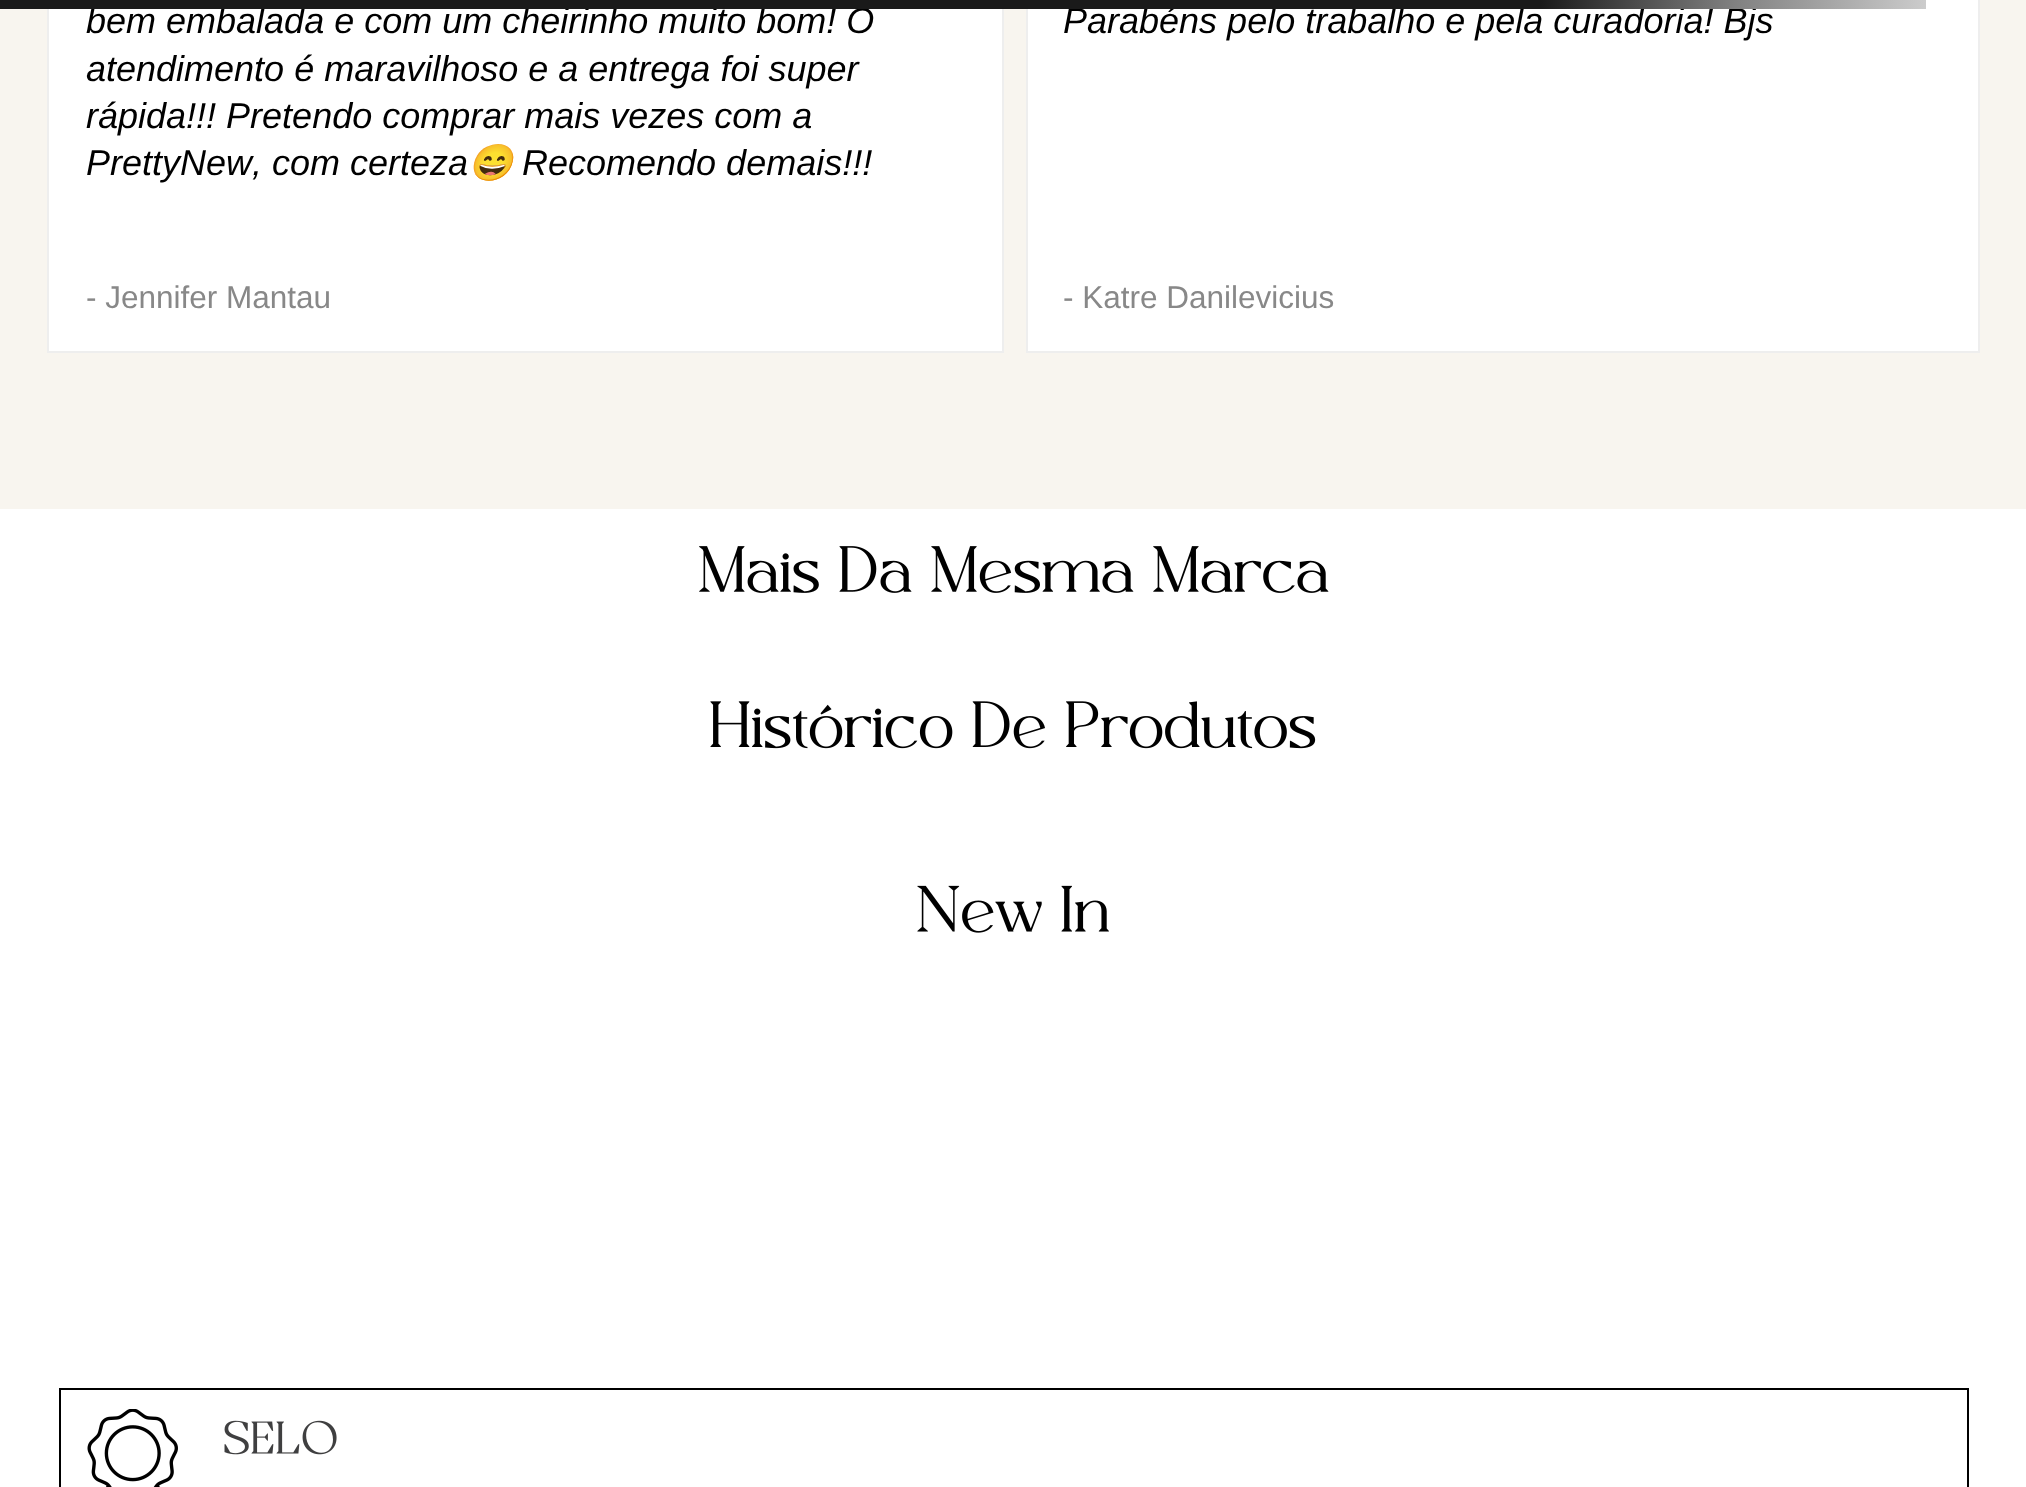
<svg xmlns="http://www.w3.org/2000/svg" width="2026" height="1487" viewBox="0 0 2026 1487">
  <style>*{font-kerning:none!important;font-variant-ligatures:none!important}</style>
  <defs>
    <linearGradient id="g1" gradientUnits="userSpaceOnUse" x1="0" y1="4.5" x2="1926" y2="4.5"><stop offset="0.8" stop-color="#1a1a1a"/><stop offset="0.9" stop-color="#808080"/><stop offset="1" stop-color="#cccccc"/></linearGradient>
  </defs>
  <rect width="100%" height="100%" fill="#ffffff"/>
  <rect x="0" y="0" width="2026" height="509" fill="#f8f5ef"/>
  <rect x="49" y="9" width="953" height="342" fill="#ffffff"/>
  <rect x="48" y="-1" width="955" height="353" fill="none" stroke="#eeeeee" stroke-width="2"/>
  <text x="86" y="33" font-family="Liberation Sans" font-size="36" font-style="italic" fill="#000000">bem embalada e com um cheirinho muito bom! O</text>
  <rect x="1027" y="-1" width="952" height="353" fill="#ffffff" stroke="#eeeeee" stroke-width="2"/>
  <text x="1063" y="33" font-family="Liberation Sans" font-size="36" font-style="italic" fill="#000000">Parabéns pelo trabalho e pela curadoria! Bjs</text>
  <rect x="0" y="0" width="1926" height="9" fill="url(#g1)"/>
  <text x="86" y="81" font-family="Liberation Sans" font-size="36" font-style="italic" fill="#000000">atendimento é maravilhoso e a entrega foi super</text>
  <text x="86" y="128" font-family="Liberation Sans" font-size="36" font-style="italic" fill="#000000">rápida!!! Pretendo comprar mais vezes com a</text>
  <text x="86" y="175" font-family="Liberation Sans" font-size="36" font-style="italic" fill="#000000">PrettyNew, com certeza</text>
  <text x="468" y="175" font-family="Noto Color Emoji" font-size="36" font-style="italic" fill="#000000">😄</text>
  <text x="522" y="175" font-family="Liberation Sans" font-size="36" font-style="italic" fill="#000000">Recomendo demais!!!</text>
  <text x="86" y="308" font-family="Liberation Sans" font-size="31.5" fill="#888888">- Jennifer Mantau</text>
  <text x="1063" y="308" font-family="Liberation Sans" font-size="31.5" fill="#888888">- Katre Danilevicius</text>
  <image x="699" y="546" width="630" height="47" href="img1.png"/>
  <image x="710" y="701" width="606" height="48" href="img2.png"/>
  <image x="917" y="885" width="192" height="48" href="img3.png"/>
  <rect x="60" y="1389" width="1908" height="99" fill="none" stroke="#000000" stroke-width="2"/>
  <image x="87" y="1409" width="91" height="78" href="img4.png"/>
  <image x="224" y="1420" width="113" height="35" href="img5.png"/>
</svg>
